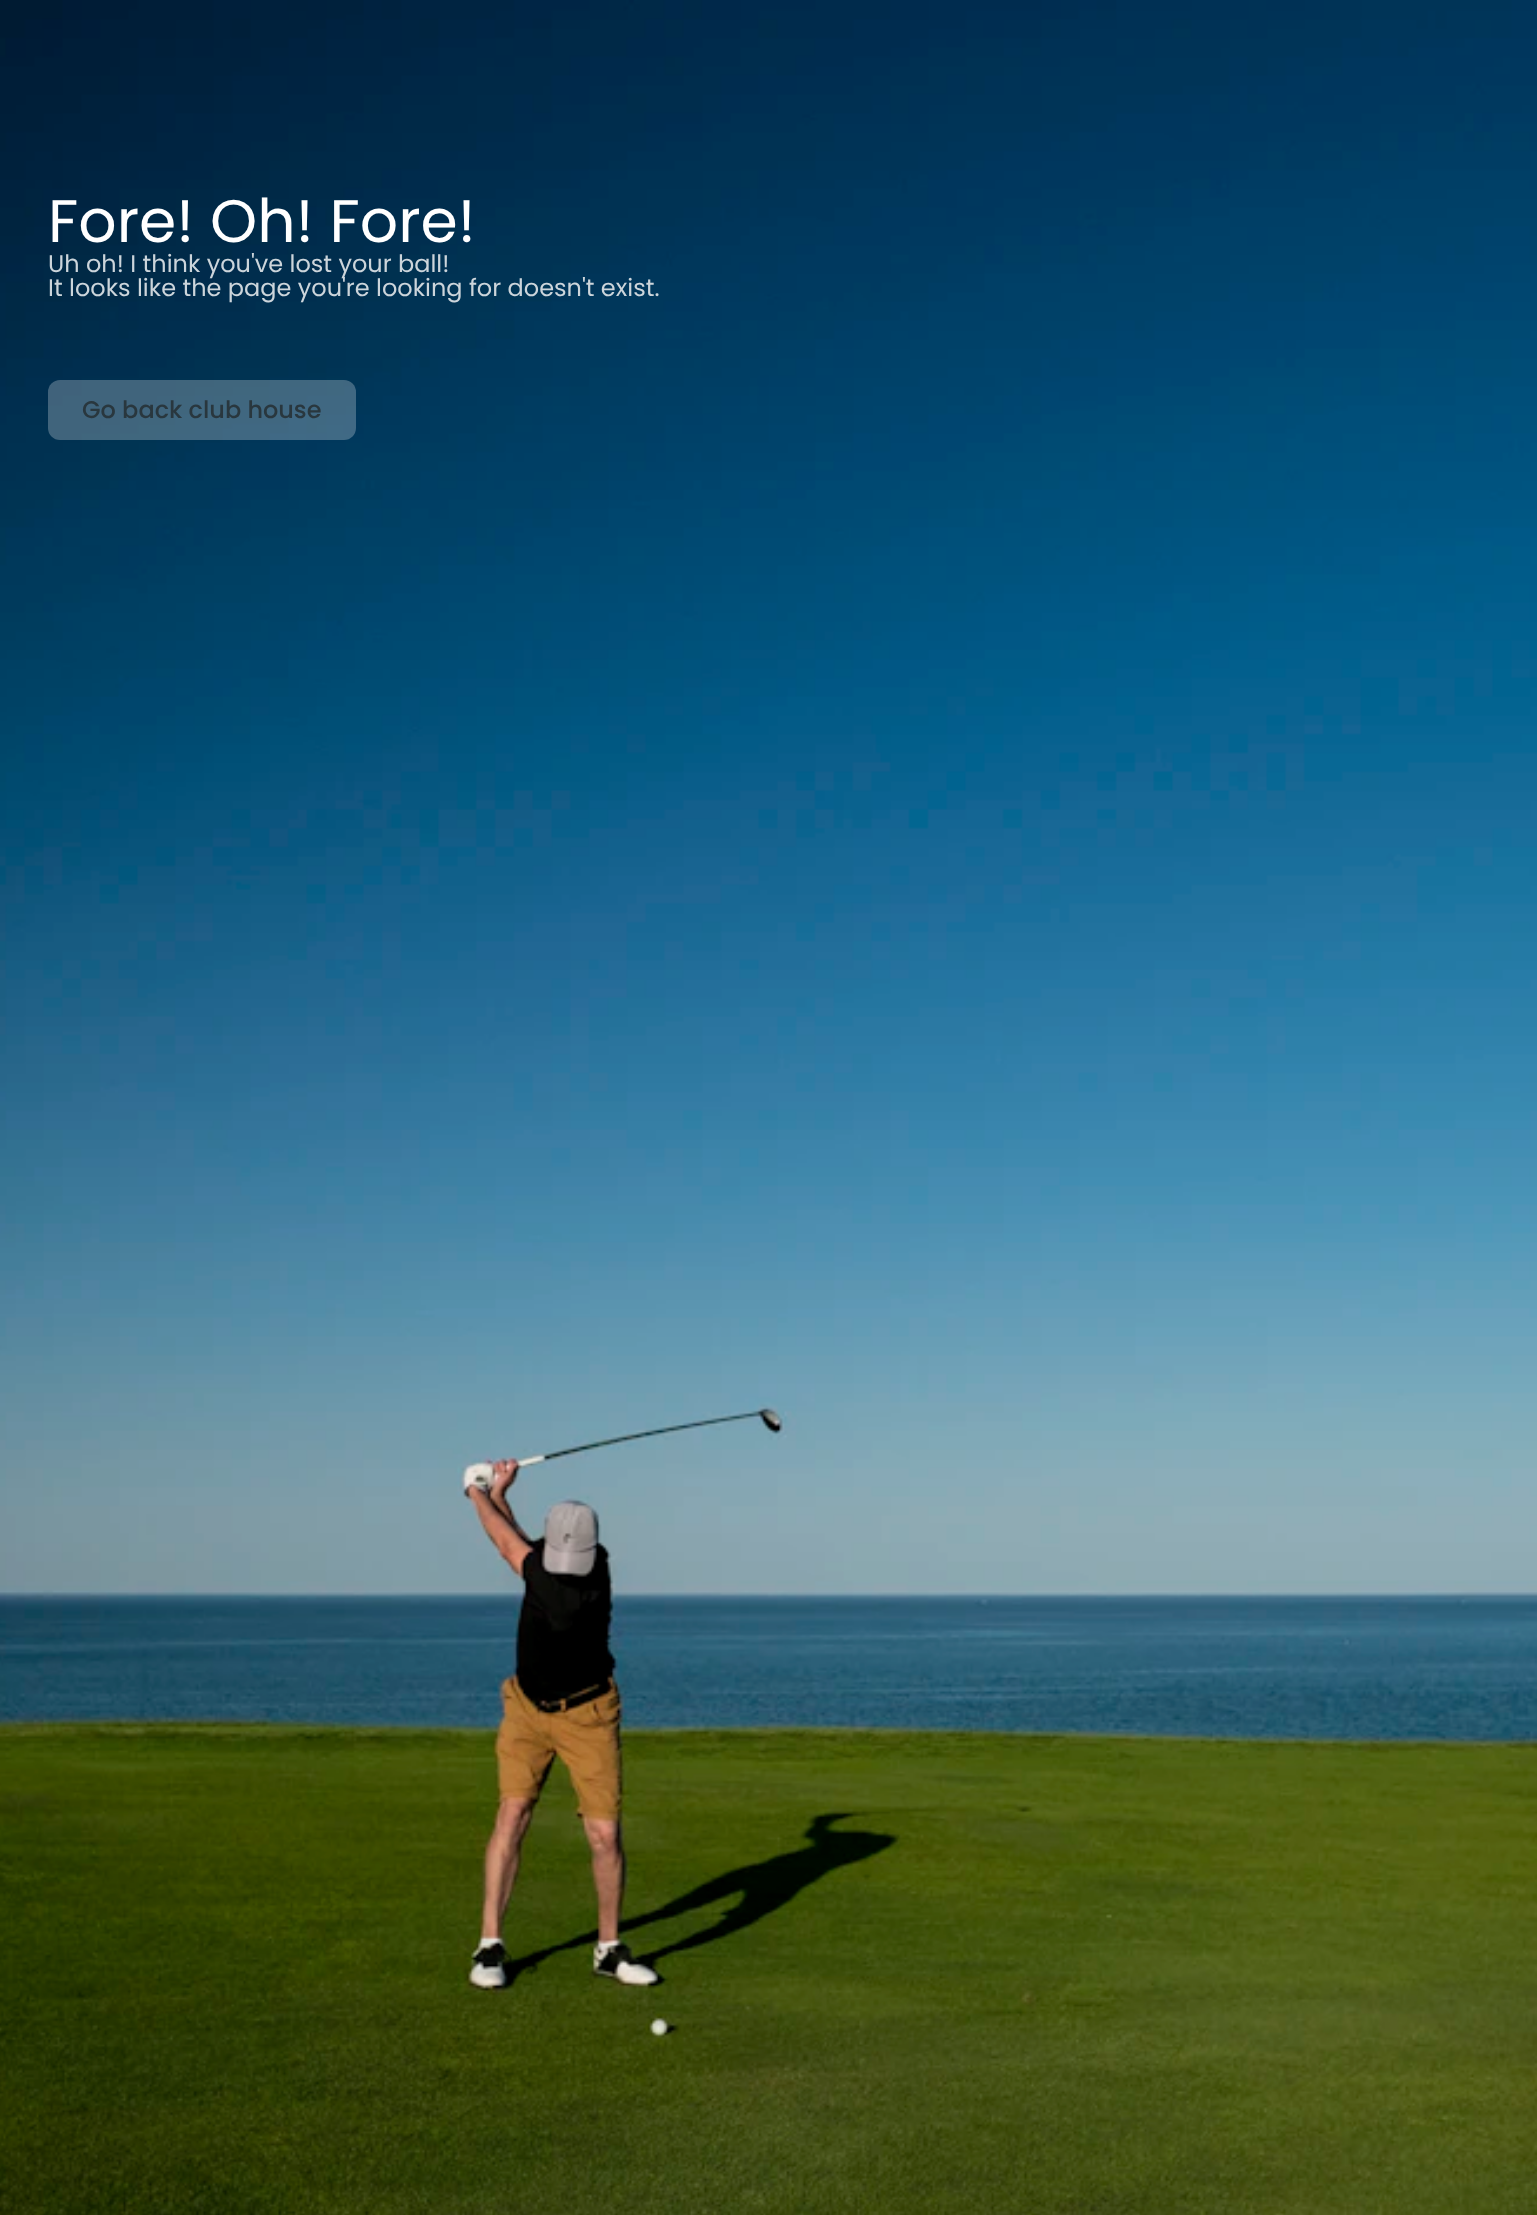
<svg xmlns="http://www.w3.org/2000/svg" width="1537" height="2215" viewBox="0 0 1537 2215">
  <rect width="100%" height="100%" fill="#ffffff"/>
  <image x="0" y="0" width="1537" height="2215" href="img1.png"/>
  <text x="48" y="242" font-family="Poppins" font-size="60" fill="#ffffff">Fore! Oh! Fore!</text>
  <text x="48" y="272" font-family="Poppins" font-size="24" fill="#ccd5db">Uh oh! I think you've lost your ball!</text>
  <text x="48" y="296" font-family="Poppins" font-size="24" fill="#ccd5db">It looks like the page you're looking for doesn't exist.</text>
  <rect x="48" y="380" width="308" height="60" rx="12" fill="#ffffff" fill-opacity="0.25"/>
  <text x="82" y="418" font-family="Poppins" font-size="24" font-weight="500" fill="#29373e">Go back club house</text>
</svg>
